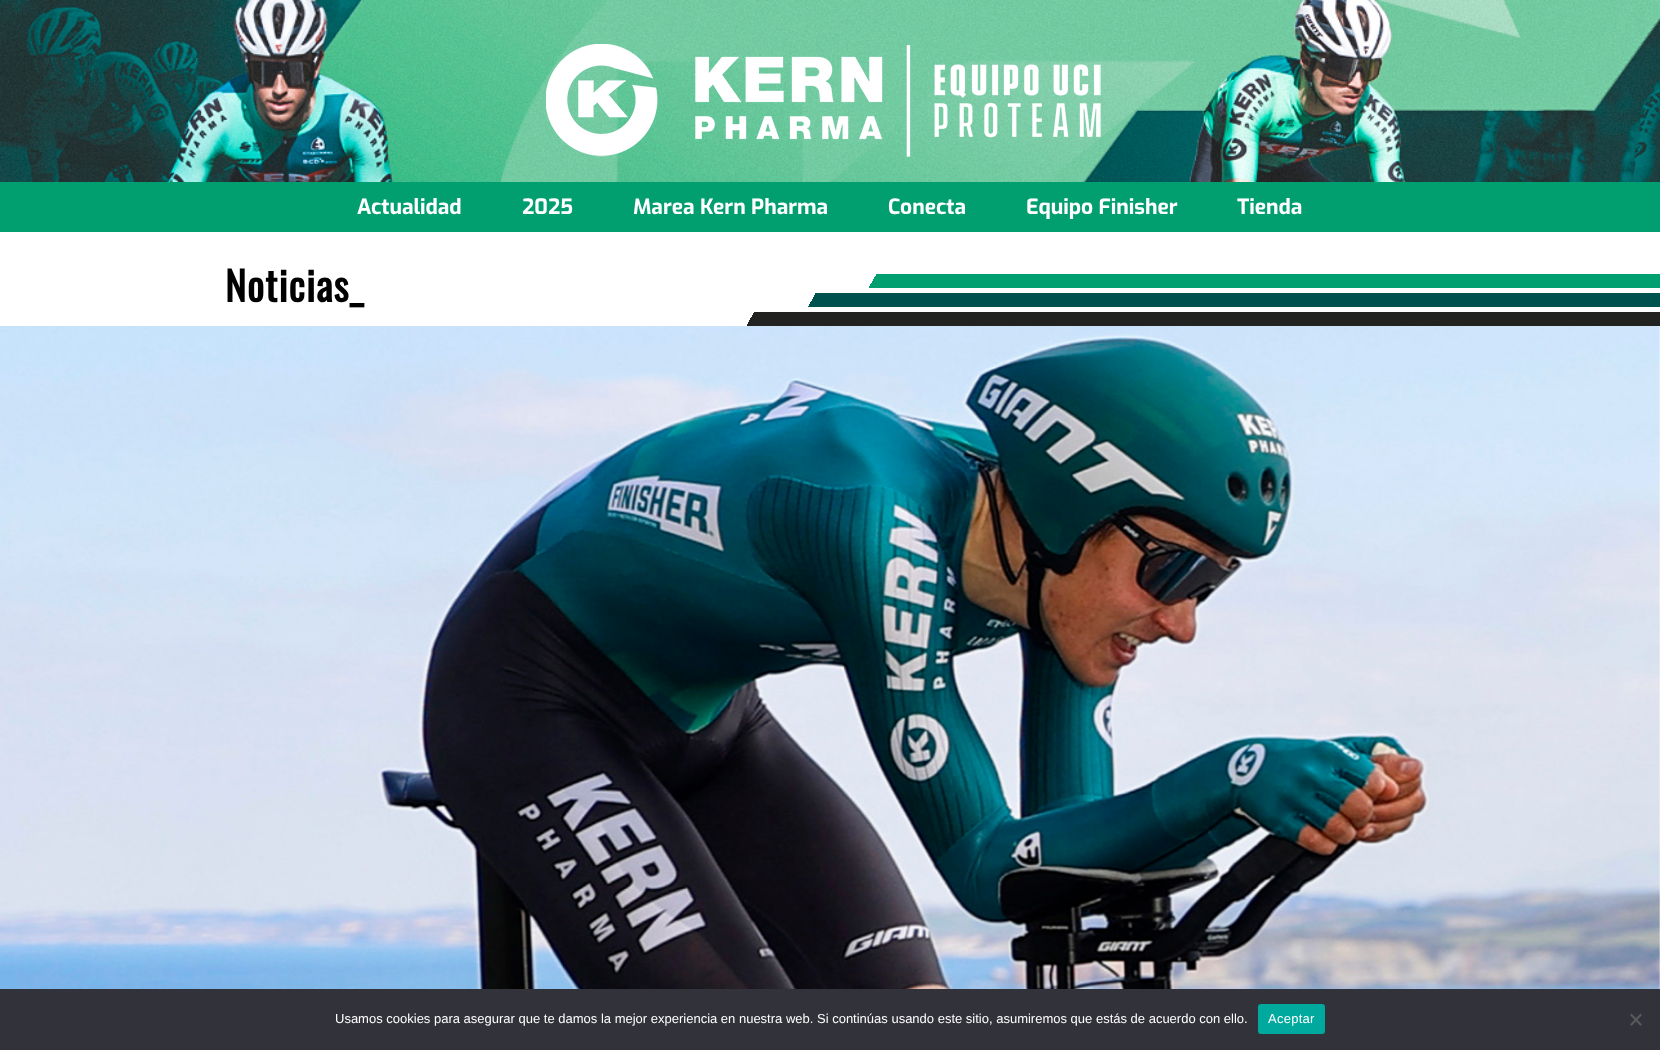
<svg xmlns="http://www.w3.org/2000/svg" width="1660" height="1050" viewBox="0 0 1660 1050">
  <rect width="100%" height="100%" fill="#ffffff"/>
  <image x="0" y="0" width="1660" height="182" href="img1.png"/>
  <image x="546" y="44" width="555" height="113" href="img2.png"/>
  <rect x="0" y="182" width="1660" height="50" fill="#019f6f"/>
  <text x="357" y="214" font-family="Exo" font-size="21" font-weight="bold" fill="#ffffff">Actualidad</text>
  <text x="522" y="214" font-family="Exo" font-size="21" font-weight="bold" fill="#ffffff">2025</text>
  <text x="633" y="214" font-family="Exo" font-size="21" font-weight="bold" fill="#ffffff">Marea Kern Pharma</text>
  <text x="888" y="214" font-family="Exo" font-size="21" font-weight="bold" fill="#ffffff">Conecta</text>
  <text x="1026" y="214" font-family="Exo" font-size="21" font-weight="bold" fill="#ffffff">Equipo Finisher</text>
  <text x="1237" y="214" font-family="Exo" font-size="21" font-weight="bold" fill="#ffffff">Tienda</text>
  <image x="747" y="274" width="913" height="52" href="img3.png"/>
  <text x="225" y="302" font-family="Oswald" font-size="40" font-weight="bold" letter-spacing="1" fill="#000000">Noticias_</text>
  <image x="0" y="326" width="1660" height="663" href="img4.png"/>
  <rect x="0" y="989" width="1660" height="61" fill="#32323a"/>
  <text x="335" y="1023" font-family="Liberation Sans" font-size="13" fill="#ffffff">Usamos cookies para asegurar que te damos la mejor experiencia en nuestra web. Si continúas usando este sitio, asumiremos que estás de acuerdo con ello.</text>
  <rect x="1258" y="1004" width="67" height="30" rx="3" fill="#00a99d"/>
  <text x="1268" y="1023" font-family="Liberation Sans" font-size="13" letter-spacing="0.25" fill="#ffffff">Aceptar</text>
  <path d="M1640.5 1013.5L1642 1015L1631.5 1026L1630 1024.5Z" fill="#59595d"/>
  <path d="M1630 1015L1631.5 1013.5L1642 1024.5L1640.5 1026Z" fill="#59595d"/>
</svg>
